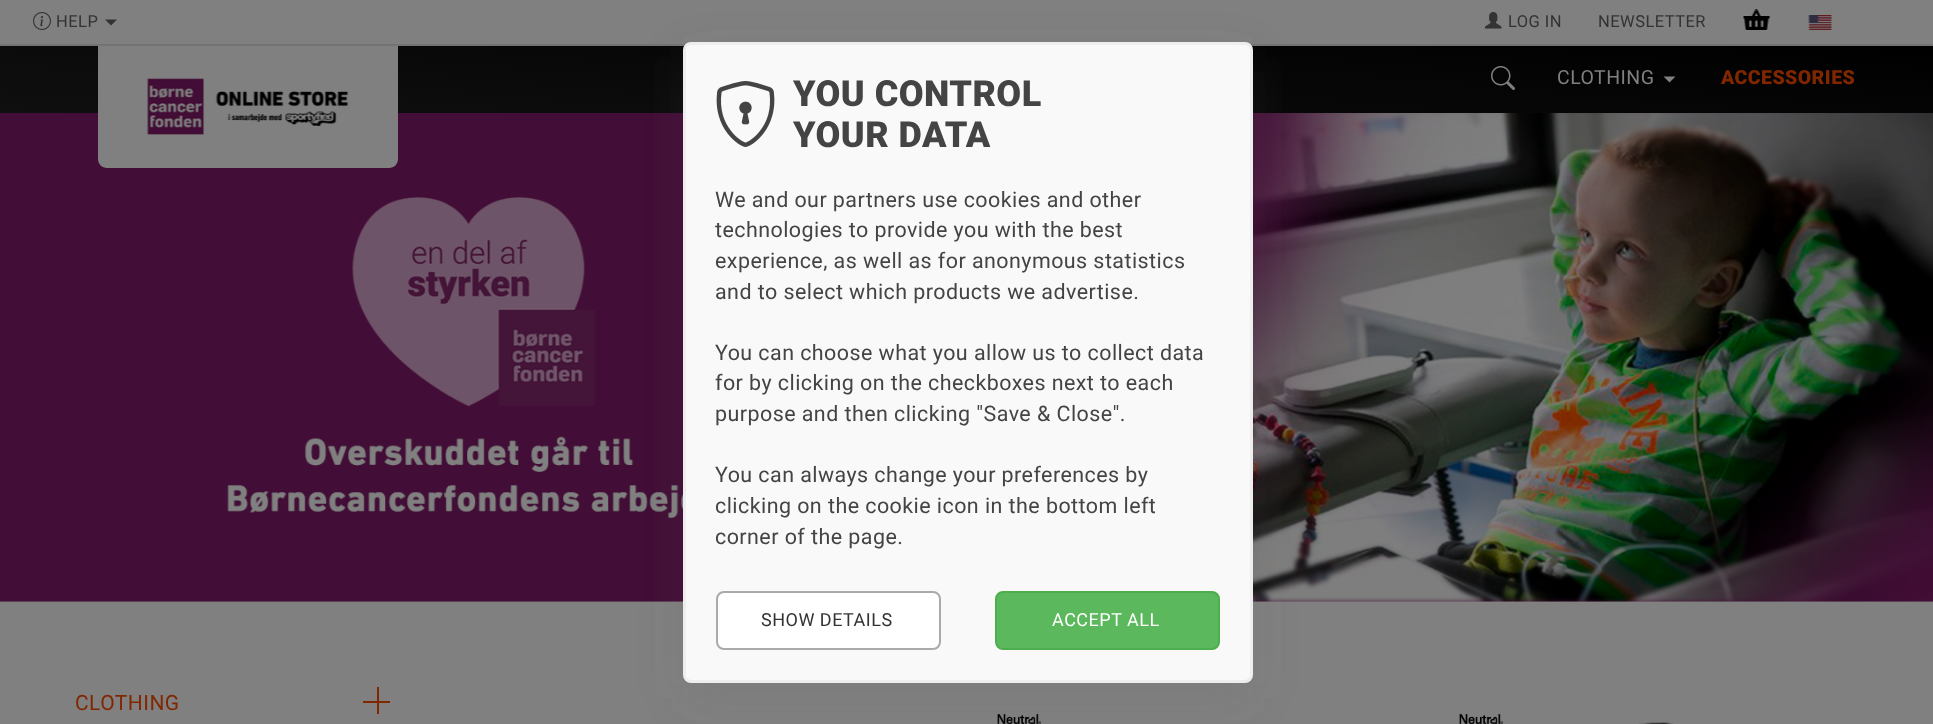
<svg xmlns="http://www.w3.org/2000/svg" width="1933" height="724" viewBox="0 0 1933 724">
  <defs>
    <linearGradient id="g1" gradientUnits="userSpaceOnUse" x1="956" y1="196" x2="977" y2="-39"><stop offset="0" stop-color="#0f0f0f"/><stop offset="1" stop-color="#000000"/></linearGradient>
    <filter id="blur1" x="-50%" y="-200%" width="200%" height="500%"><feGaussianBlur stdDeviation="22.5"/></filter>
  </defs>
  <rect width="100%" height="100%" fill="#777777"/>
  <rect x="0" y="0" width="1933" height="44" fill="#808080"/>
  <rect x="0" y="46" width="1933" height="67" fill="url(#g1)"/>
  <image x="0" y="113" width="1933" height="489" href="img8.png"/>
  <path d="M98 45H398V159C398 164 394 168 389 168H107C102 168 98 164 98 159Z" fill="#808080"/>
  <rect x="0" y="44" width="1933" height="2" fill="#737373"/>
  <image x="33" y="12" width="18" height="18" href="img1.png"/>
  <text x="56" y="27" font-family="Roboto" font-size="16.5" letter-spacing="0.45" fill="#333333">HELP</text>
  <path d="M105 19.5H117L111 25.5Z" fill="#333333"/>
  <image x="1485" y="12" width="17" height="17" href="img2.png"/>
  <text x="1508" y="27" font-family="Roboto" font-size="16.5" letter-spacing="0.45" fill="#333333">LOG IN</text>
  <text x="1598" y="27" font-family="Roboto" font-size="16.5" letter-spacing="0.45" fill="#333333">NEWSLETTER</text>
  <image x="1743" y="9" width="28" height="21" href="img3.png"/>
  <image x="1808" y="15" width="24" height="15" href="img4.png"/>
  <image x="147" y="78" width="202" height="57" href="img5.png"/>
  <image x="1491" y="66" width="24" height="24" href="img6.png"/>
  <text x="1557" y="84" font-family="Roboto" font-size="19.5" letter-spacing="0.45" fill="#808080">CLOTHING</text>
  <path d="M1663.5 76.5H1675.5L1669.5 82.5Z" fill="#808080"/>
  <text x="1721" y="84" font-family="Roboto" font-size="19.5" font-weight="900" letter-spacing="0.45" fill="#802700">ACCESSORIES</text>
  <rect x="0" y="602" width="1933" height="122" fill="#808080"/>
  <image x="997" y="713" width="44" height="11" href="img9.png"/>
  <rect x="683" y="57" width="570" height="641" rx="8" fill="#646464" fill-opacity="0.15" filter="url(#blur1)"/>
  <rect x="684.5" y="43.5" width="567" height="638" rx="6.5" fill="#f9f9f9" stroke="#eeeeee" stroke-width="3"/>
  <image x="716" y="81" width="59" height="66" href="img7.png"/>
  <text x="793" y="106" font-family="Roboto" font-size="36" font-weight="900" letter-spacing="0.45" fill="#444444">YOU CONTROL</text>
  <text x="793" y="147" font-family="Roboto" font-size="36" font-weight="900" letter-spacing="0.45" fill="#444444">YOUR DATA</text>
  <text x="715" y="207" font-family="Roboto" font-size="21.45" letter-spacing="0.45" fill="#444444">We and our partners use cookies and other</text>
  <text x="715" y="237" font-family="Roboto" font-size="21.45" letter-spacing="0.45" fill="#444444">technologies to provide you with the best</text>
  <text x="715" y="268" font-family="Roboto" font-size="21.45" letter-spacing="0.45" fill="#444444">experience, as well as for anonymous statistics</text>
  <text x="715" y="299" font-family="Roboto" font-size="21.45" letter-spacing="0.45" fill="#444444">and to select which products we advertise.</text>
  <text x="715" y="360" font-family="Roboto" font-size="21.45" letter-spacing="0.45" fill="#444444">You can choose what you allow us to collect data</text>
  <text x="715" y="390" font-family="Roboto" font-size="21.45" letter-spacing="0.45" fill="#444444">for by clicking on the checkboxes next to each</text>
  <text x="715" y="421" font-family="Roboto" font-size="21.45" letter-spacing="0.45" fill="#444444">purpose and then clicking "Save &amp; Close".</text>
  <text x="715" y="482" font-family="Roboto" font-size="21.45" letter-spacing="0.45" fill="#444444">You can always change your preferences by</text>
  <text x="715" y="513" font-family="Roboto" font-size="21.45" letter-spacing="0.45" fill="#444444">clicking on the cookie icon in the bottom left</text>
  <text x="715" y="544" font-family="Roboto" font-size="21.45" letter-spacing="0.45" fill="#444444">corner of the page.</text>
  <rect x="717" y="592" width="223" height="57" rx="7" fill="#ffffff" stroke="#aaaaaa" stroke-width="2"/>
  <text x="761" y="626" font-family="Roboto" font-size="18" letter-spacing="0.5" fill="#333333">SHOW DETAILS</text>
  <rect x="996" y="592" width="223" height="57" rx="7" fill="#5cb85c" stroke="#4cae4c" stroke-width="2"/>
  <text x="1052" y="626" font-family="Roboto" font-size="18" letter-spacing="0.5" fill="#ffffff">ACCEPT ALL</text>
  <text x="75" y="710" font-family="Roboto" font-size="21" letter-spacing="0.45" fill="#802700">CLOTHING</text>
  <rect x="377" y="687" width="2" height="27" fill="#802700"/>
  <rect x="363" y="701" width="27" height="2" fill="#802700"/>
  <image x="1459" y="713" width="44" height="11" href="img9.png"/>
  <image x="1638" y="722" width="36" height="2" href="img10.png"/>
</svg>
